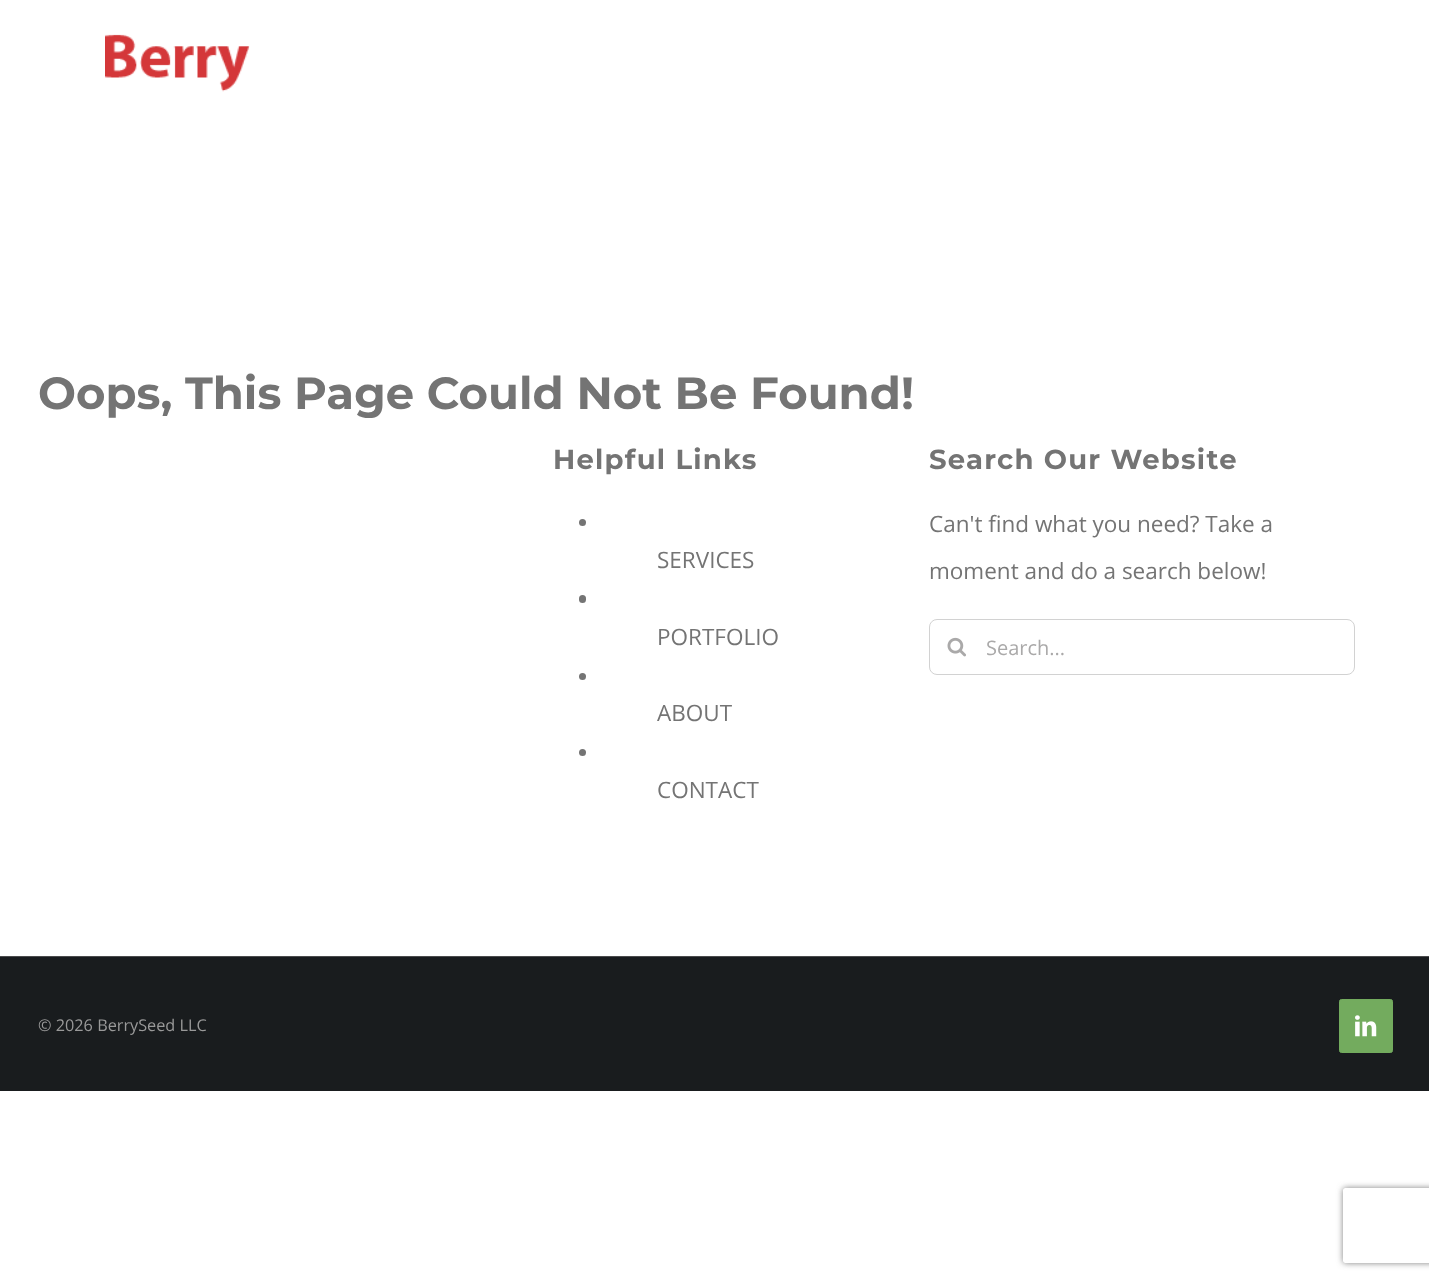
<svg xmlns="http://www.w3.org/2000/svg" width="1429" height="1280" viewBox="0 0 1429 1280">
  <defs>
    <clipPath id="clip1"><path d="M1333 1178H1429V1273H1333ZM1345.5 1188H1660.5C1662 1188 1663 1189 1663 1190.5V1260.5C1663 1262 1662 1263 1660.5 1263H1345.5C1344 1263 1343 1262 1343 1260.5V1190.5C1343 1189 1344 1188 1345.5 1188Z" clip-rule="evenodd"/></clipPath>
    <filter id="blur1" x="-50%" y="-200%" width="200%" height="500%"><feGaussianBlur stdDeviation="3"/></filter>
  </defs>
  <rect width="100%" height="100%" fill="#ffffff"/>
  <image x="105" y="34" width="145" height="58" href="img1.png"/>
  <text x="38" y="409" font-family="Montserrat" font-size="45" font-weight="bold" fill="#747474">Oops, This Page Could Not Be Found!</text>
  <text x="553" y="469" font-family="Montserrat" font-size="27.5" font-weight="bold" letter-spacing="1.25" fill="#747474">Helpful Links</text>
  <circle cx="582.5" cy="522.5" r="3.5" fill="#747474"/>
  <text x="657" y="568" font-family="Open Sans" font-size="22.5" fill="#747474">SERVICES</text>
  <rect x="579" y="595" width="7" height="8" rx="3.5" fill="#747474"/>
  <text x="657" y="645" font-family="Open Sans" font-size="22.5" fill="#747474">PORTFOLIO</text>
  <circle cx="582.5" cy="676.5" r="3.5" fill="#747474"/>
  <text x="657" y="721" font-family="Open Sans" font-size="22.5" fill="#747474">ABOUT</text>
  <circle cx="582.5" cy="752.5" r="3.5" fill="#747474"/>
  <text x="657" y="798" font-family="Open Sans" font-size="22.5" fill="#747474">CONTACT</text>
  <text x="929" y="469" font-family="Montserrat" font-size="27.5" font-weight="bold" letter-spacing="1.25" fill="#747474">Search Our Website</text>
  <text x="929" y="532" font-family="Open Sans" font-size="22.5" fill="#747474">Can't find what you need? Take a</text>
  <text x="929" y="579" font-family="Open Sans" font-size="22.5" fill="#747474">moment and do a search below!</text>
  <rect x="929.5" y="619.5" width="425" height="55" rx="7.5" fill="none" stroke="#d2d2d2"/>
  <image x="947" y="637" width="19" height="20" href="img2.png"/>
  <text x="986" y="655" font-family="Open Sans" font-size="20" fill="#aaa9a9">Search...</text>
  <rect x="0" y="957" width="1429" height="134" fill="#191c1e"/>
  <rect x="0" y="956" width="1429" height="1" fill="#4b4c4d"/>
  <text x="38" y="1031" font-family="Open Sans" font-size="16.25" fill="#999999">© 2026 BerrySeed LLC</text>
  <rect x="1339.5" y="999.5" width="53" height="53" rx="2" fill="#73ab5e" stroke="#73ab5e"/>
  <image x="1355" y="1015" width="22" height="22" href="img3.png"/>
  <g clip-path="url(#clip1)">
    <rect x="1343" y="1188" width="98" height="75" rx="2.5" fill="#808080" filter="url(#blur1)"/>
  </g>
</svg>
